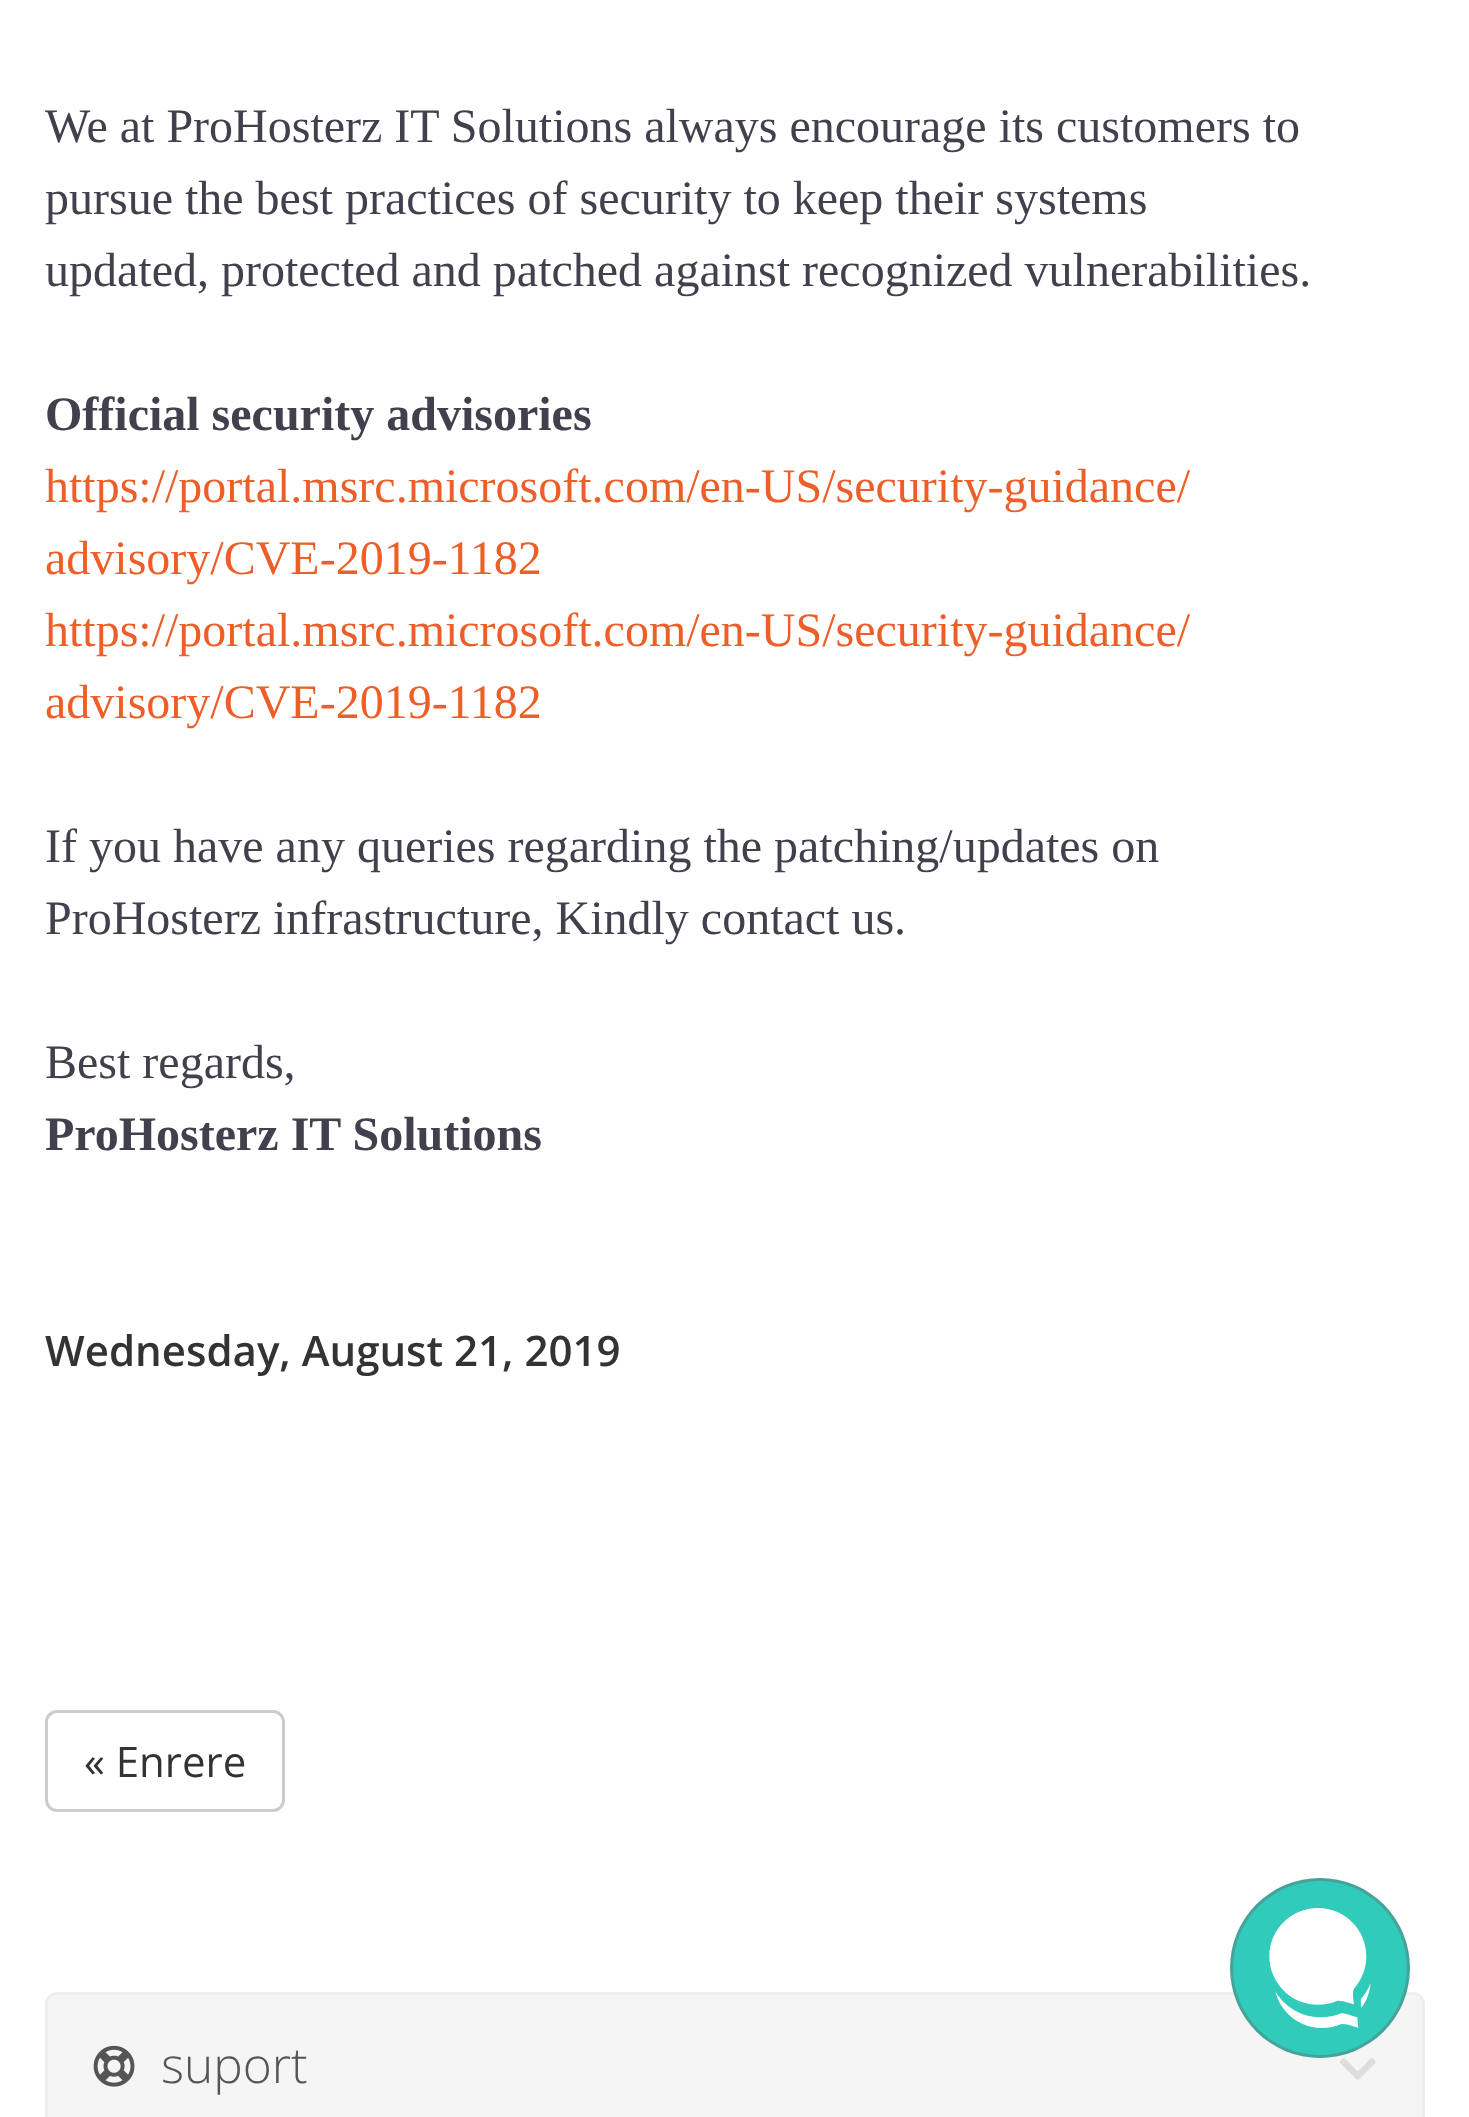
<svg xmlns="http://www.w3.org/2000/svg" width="1469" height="2117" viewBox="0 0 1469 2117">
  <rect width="100%" height="100%" fill="#ffffff"/>
  <text x="45" y="142" font-family="Liberation Serif" font-size="48" fill="#43404d">We at ProHosterz IT Solutions always encourage its customers to</text>
  <text x="45" y="214" font-family="Liberation Serif" font-size="48" fill="#43404d">pursue the best practices of security to keep their systems</text>
  <text x="45" y="286" font-family="Liberation Serif" font-size="48" fill="#43404d">updated, protected and patched against recognized vulnerabilities.</text>
  <text x="45" y="430" font-family="Liberation Serif" font-size="48" font-weight="bold" fill="#43404d">Official security advisories</text>
  <text x="45" y="502" font-family="Liberation Serif" font-size="48" fill="#ed5e29">https://portal.msrc.microsoft.com/en-US/security-guidance/</text>
  <text x="45" y="574" font-family="Liberation Serif" font-size="48" fill="#ed5e29">advisory/CVE-2019-1182</text>
  <text x="45" y="646" font-family="Liberation Serif" font-size="48" fill="#ed5e29">https://portal.msrc.microsoft.com/en-US/security-guidance/</text>
  <text x="45" y="718" font-family="Liberation Serif" font-size="48" fill="#ed5e29">advisory/CVE-2019-1182</text>
  <text x="45" y="862" font-family="Liberation Serif" font-size="48" fill="#43404d">If you have any queries regarding the patching/updates on</text>
  <text x="45" y="934" font-family="Liberation Serif" font-size="48" fill="#43404d">ProHosterz infrastructure, Kindly contact us.</text>
  <text x="45" y="1078" font-family="Liberation Serif" font-size="48" fill="#43404d">Best regards,</text>
  <text x="45" y="1150" font-family="Liberation Serif" font-size="48" font-weight="bold" fill="#43404d">ProHosterz IT Solutions</text>
  <text x="45" y="1366" font-family="Open Sans" font-size="42" font-weight="600" fill="#333333">Wednesday, August 21, 2019</text>
  <rect x="46.5" y="1711.5" width="237" height="99" rx="10.5" fill="none" stroke="#cccccc" stroke-width="3"/>
  <text x="84" y="1777" font-family="Open Sans" font-size="42" fill="#333333">« Enrere</text>
  <rect x="46.5" y="1993.5" width="1377" height="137" rx="10.5" fill="none" stroke="#eeeeee" stroke-width="3"/>
  <path d="M57 1995H1413C1418 1995 1422 1999 1422 2004V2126H48V2004C48 1999 52 1995 57 1995Z" fill="#f5f5f5"/>
  <image x="93" y="2045" width="42" height="42" href="img1.png"/>
  <text x="161" y="2083" font-family="Open Sans" font-size="49.5" font-weight="300" fill="#555555">suport</text>
  <image x="1340" y="2058" width="36" height="22" href="img2.png"/>
  <image x="1230" y="1878" width="180" height="180" href="img3.png"/>
</svg>
